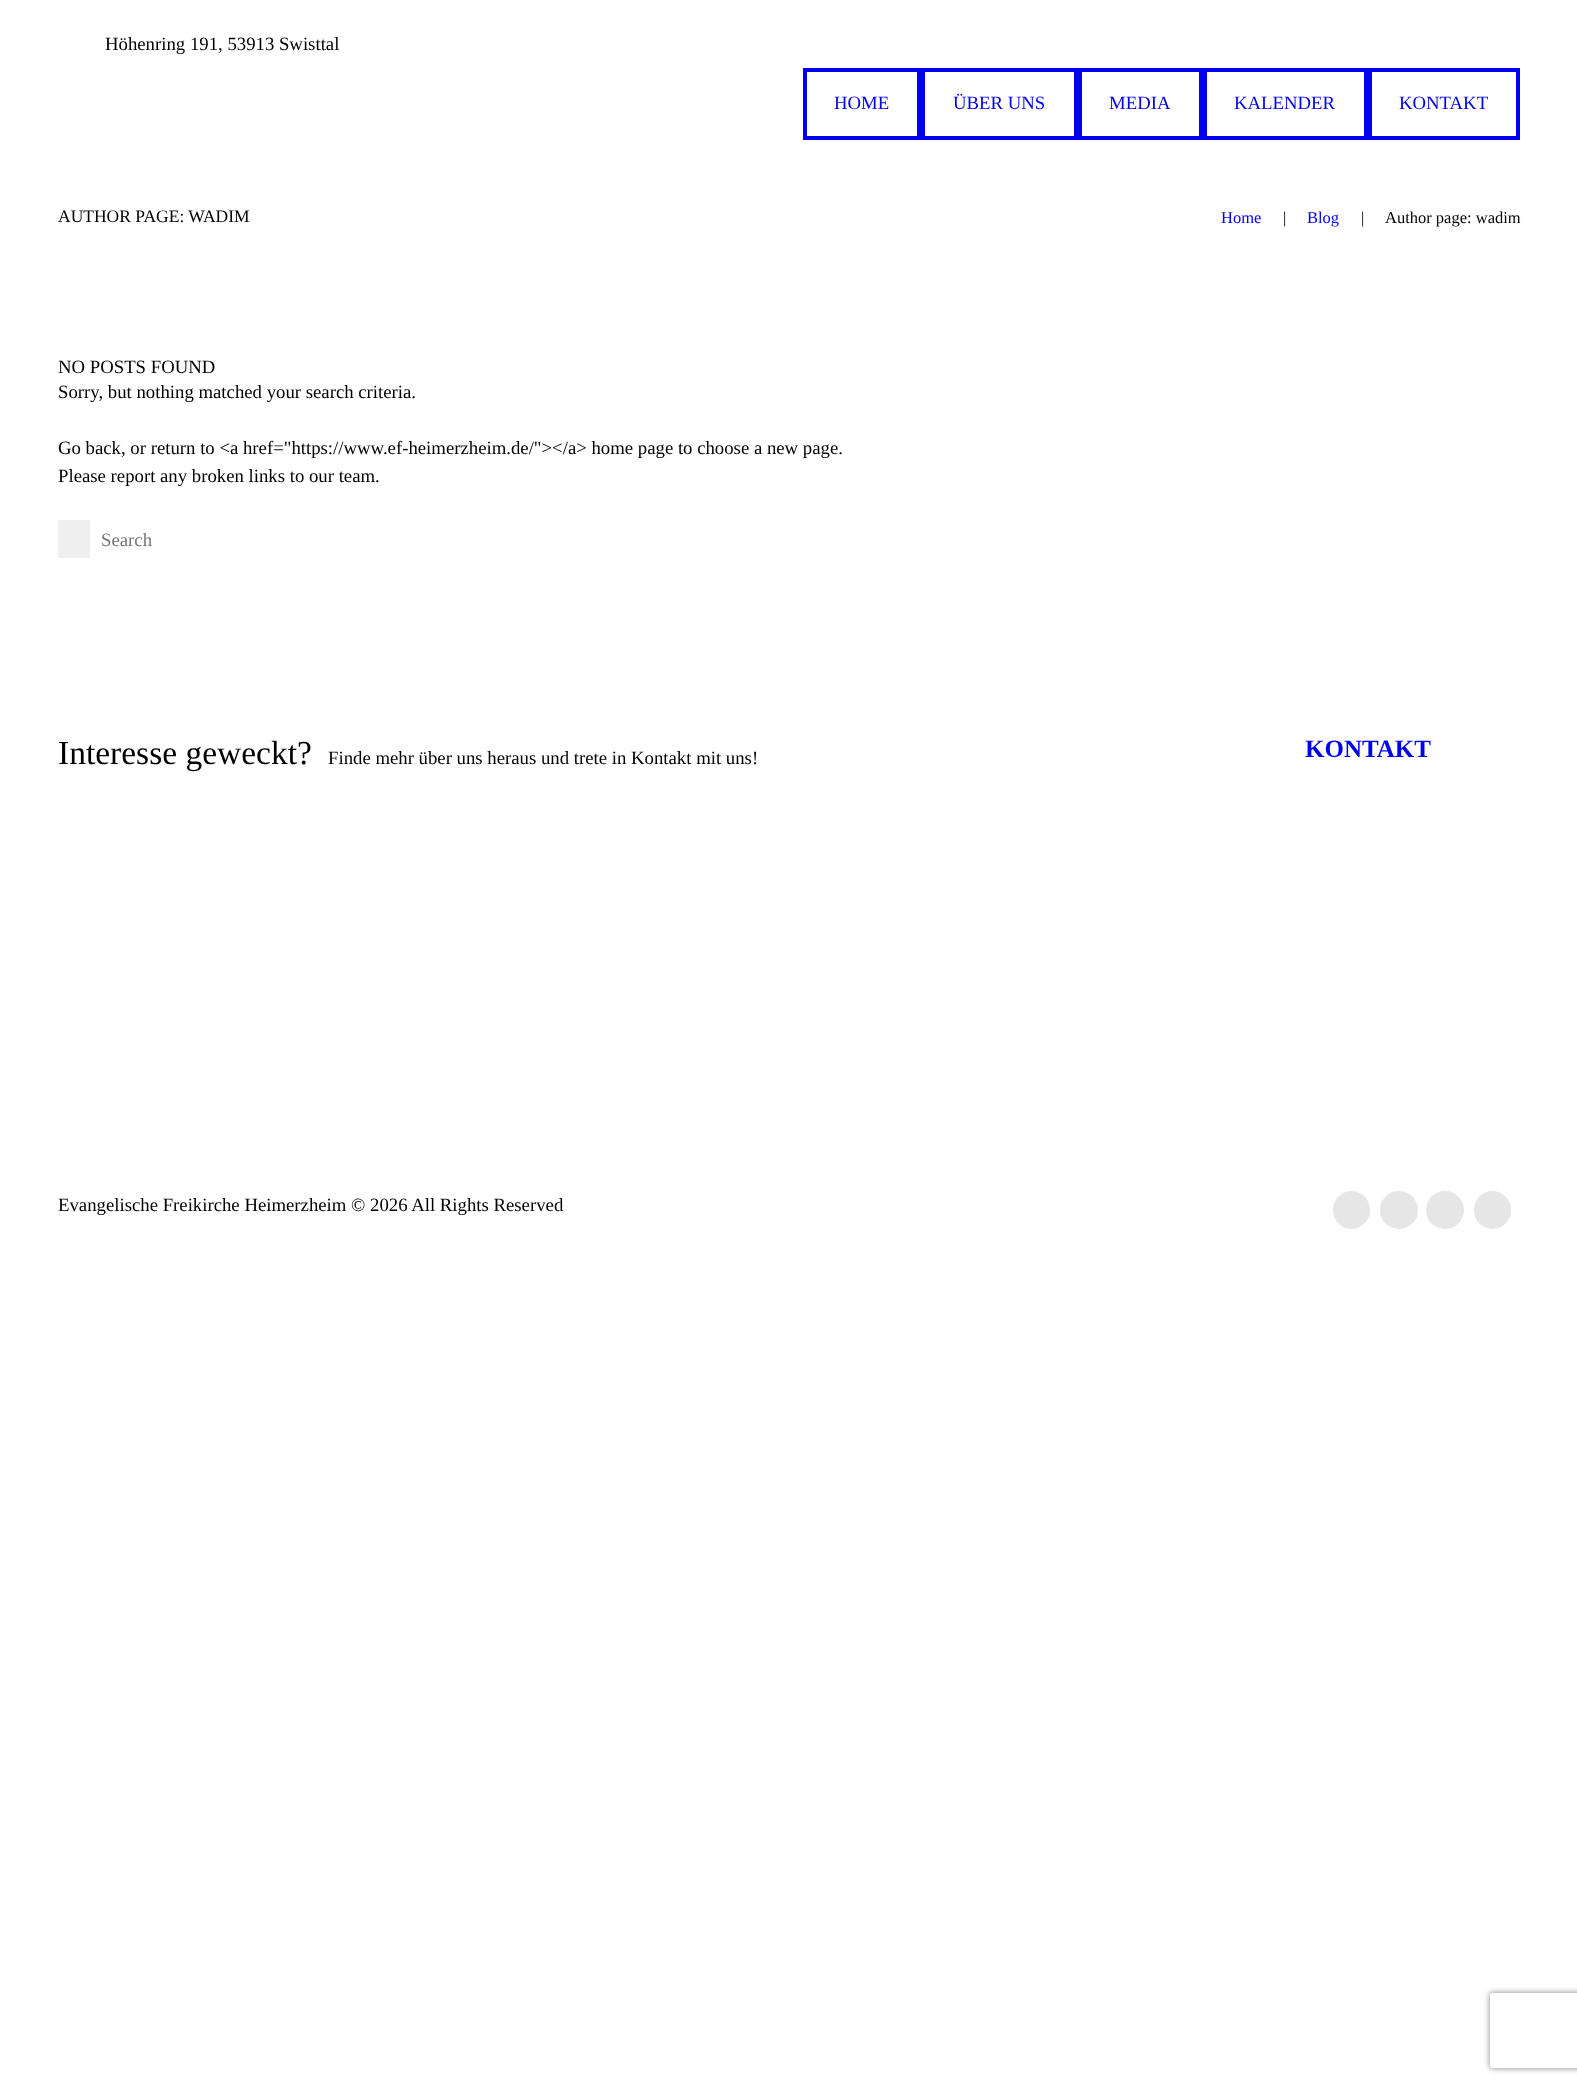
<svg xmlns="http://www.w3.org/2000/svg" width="1577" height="2084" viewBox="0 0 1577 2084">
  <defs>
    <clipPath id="clip1"><path d="M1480 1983H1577V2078H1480ZM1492.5 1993H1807.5C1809 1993 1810 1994 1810 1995.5V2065.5C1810 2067 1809 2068 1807.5 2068H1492.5C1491 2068 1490 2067 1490 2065.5V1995.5C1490 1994 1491 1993 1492.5 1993Z" clip-rule="evenodd"/></clipPath>
    <filter id="blur1" x="-50%" y="-200%" width="200%" height="500%"><feGaussianBlur stdDeviation="3"/></filter>
  </defs>
  <rect width="100%" height="100%" fill="#ffffff"/>
  <text x="105" y="50" font-family="Liberation Serif" font-size="18.75" fill="#000000">Höhenring 191, 53913 Swisttal</text>
  <rect x="805" y="70" width="114" height="68" fill="none" stroke="#0000ee" stroke-width="4"/>
  <text x="834" y="109" font-family="Liberation Serif" font-size="18.75" fill="#0000ee">HOME</text>
  <rect x="923" y="70" width="153" height="68" fill="none" stroke="#0000ee" stroke-width="4"/>
  <text x="953" y="109" font-family="Liberation Serif" font-size="18.75" fill="#0000ee">ÜBER UNS</text>
  <rect x="1080" y="70" width="121" height="68" fill="none" stroke="#0000ee" stroke-width="4"/>
  <text x="1109" y="109" font-family="Liberation Serif" font-size="18.75" fill="#0000ee">MEDIA</text>
  <rect x="1205" y="70" width="161" height="68" fill="none" stroke="#0000ee" stroke-width="4"/>
  <text x="1234" y="109" font-family="Liberation Serif" font-size="18.75" fill="#0000ee">KALENDER</text>
  <rect x="1370" y="70" width="148" height="68" fill="none" stroke="#0000ee" stroke-width="4"/>
  <text x="1399" y="109" font-family="Liberation Serif" font-size="18.75" fill="#0000ee">KONTAKT</text>
  <text x="58" y="222" font-family="Liberation Serif" font-size="17.5" fill="#000000">AUTHOR PAGE: WADIM</text>
  <text x="1221" y="223" font-family="Liberation Serif" font-size="16.5" fill="#0000ee">Home</text>
  <text x="1283" y="223" font-family="Liberation Serif" font-size="16.5" fill="#000000">|</text>
  <text x="1307" y="223" font-family="Liberation Serif" font-size="16.5" fill="#0000ee">Blog</text>
  <text x="1361" y="223" font-family="Liberation Serif" font-size="16.5" fill="#000000">|</text>
  <text x="1385" y="223" font-family="Liberation Serif" font-size="16.5" fill="#000000">Author page: wadim</text>
  <text x="58" y="373" font-family="Liberation Serif" font-size="18.75" fill="#000000">NO POSTS FOUND</text>
  <text x="58" y="398" font-family="Liberation Serif" font-size="18.75" fill="#000000">Sorry, but nothing matched your search criteria.</text>
  <text x="58" y="454" font-family="Liberation Serif" font-size="18.75" fill="#000000">Go back, or return to &lt;a href="https://www.ef-heimerzheim.de/"&gt;&lt;/a&gt; home page to choose a new page.</text>
  <text x="58" y="482" font-family="Liberation Serif" font-size="18.75" fill="#000000">Please report any broken links to our team.</text>
  <rect x="58" y="520" width="32" height="38" fill="#efefef"/>
  <text x="101" y="546" font-family="Liberation Serif" font-size="18.75" fill="#757575">Search</text>
  <text x="58" y="764" font-family="Liberation Serif" font-size="33.5" fill="#000000">Interesse geweckt?</text>
  <text x="328" y="764" font-family="Liberation Serif" font-size="18.75" fill="#000000">Finde mehr über uns heraus und trete in Kontakt mit uns!</text>
  <text x="1305" y="757" font-family="Liberation Serif" font-size="25" font-weight="bold" fill="#0000ee">KONTAKT</text>
  <text x="58" y="1211" font-family="Liberation Serif" font-size="18.75" fill="#000000">Evangelische Freikirche Heimerzheim © 2026 All Rights Reserved</text>
  <rect x="1333" y="1191" width="37" height="38" rx="18.5" fill="#e6e6e6"/>
  <circle cx="1399" cy="1210" r="19" fill="#e6e6e6"/>
  <circle cx="1445" cy="1210" r="19" fill="#e6e6e6"/>
  <rect x="1474" y="1191" width="37" height="38" rx="18.5" fill="#e6e6e6"/>
  <g clip-path="url(#clip1)">
    <rect x="1490" y="1993" width="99" height="75" rx="2.5" fill="#808080" filter="url(#blur1)"/>
  </g>
</svg>
